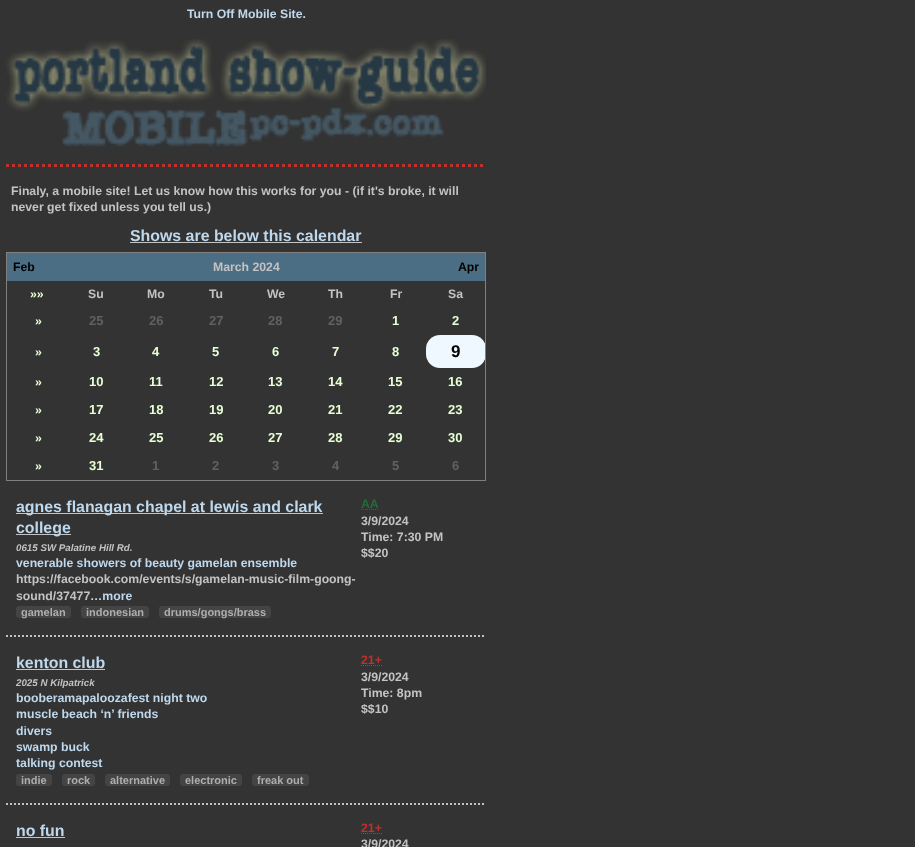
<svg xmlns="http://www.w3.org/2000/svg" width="915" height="847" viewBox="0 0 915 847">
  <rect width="100%" height="100%" fill="#333333"/>
  <text x="187" y="18" font-family="Liberation Sans" font-size="12.25" font-weight="bold" fill="#bed8ed">Turn Off Mobile Site.</text>
  <image x="6" y="39" width="480" height="108" href="img1.png"/>
  <path d="M6 165.5H486" fill="none" stroke="#c2302c" stroke-width="3" stroke-dasharray="3 3"/>
  <text x="11" y="195" font-family="Liberation Sans" font-size="12.25" font-weight="bold" fill="#c4c2c2">Finaly, a mobile site! Let us know how this works for you - (if it's broke, it will</text>
  <text x="11" y="211" font-family="Liberation Sans" font-size="12.25" font-weight="bold" fill="#c4c2c2">never get fixed unless you tell us.)</text>
  <text x="130" y="241" font-family="Liberation Sans" font-size="15.9" font-weight="bold" fill="#bed8ed">Shows are below this calendar</text>
  <rect x="130" y="242" width="232" height="1" fill="#c4c2c2"/>
  <rect x="6" y="252" width="480" height="1" fill="#808080"/>
  <rect x="426" y="335" width="60" height="33" rx="14" fill="#f0f8ff"/>
  <rect x="485" y="252" width="1" height="229" fill="#808080"/>
  <rect x="6" y="480" width="480" height="1" fill="#808080"/>
  <rect x="6" y="252" width="1" height="229" fill="#808080"/>
  <rect x="7" y="253" width="478" height="28" fill="#4c6e84"/>
  <text x="13" y="271" font-family="Liberation Sans" font-size="12.25" font-weight="bold" fill="#000000">Feb</text>
  <text x="213" y="271" font-family="Liberation Sans" font-size="12.25" font-weight="bold" fill="#c4c2c2">March 2024</text>
  <text x="458" y="271" font-family="Liberation Sans" font-size="12.25" font-weight="bold" fill="#000000">Apr</text>
  <text x="30" y="298" font-family="Liberation Sans" font-size="12.25" font-weight="bold" fill="#e6ffd4">»»</text>
  <text x="88" y="298" font-family="Liberation Sans" font-size="12.25" font-weight="bold" fill="#c4c2c2">Su</text>
  <text x="147" y="298" font-family="Liberation Sans" font-size="12.25" font-weight="bold" fill="#c4c2c2">Mo</text>
  <text x="209" y="298" font-family="Liberation Sans" font-size="12.25" font-weight="bold" fill="#c4c2c2">Tu</text>
  <text x="267" y="298" font-family="Liberation Sans" font-size="12.25" font-weight="bold" fill="#c4c2c2">We</text>
  <text x="328" y="298" font-family="Liberation Sans" font-size="12.25" font-weight="bold" fill="#c4c2c2">Th</text>
  <text x="390" y="298" font-family="Liberation Sans" font-size="12.25" font-weight="bold" fill="#c4c2c2">Fr</text>
  <text x="448" y="298" font-family="Liberation Sans" font-size="12.25" font-weight="bold" fill="#c4c2c2">Sa</text>
  <text x="35" y="325" font-family="Liberation Sans" font-size="12.25" font-weight="bold" fill="#e6ffd4">»</text>
  <text x="89" y="325" font-family="Liberation Sans" font-size="13" font-weight="bold" fill="#636060">25</text>
  <text x="149" y="325" font-family="Liberation Sans" font-size="13" font-weight="bold" fill="#636060">26</text>
  <text x="209" y="325" font-family="Liberation Sans" font-size="13" font-weight="bold" fill="#636060">27</text>
  <text x="268" y="325" font-family="Liberation Sans" font-size="13" font-weight="bold" fill="#636060">28</text>
  <text x="328" y="325" font-family="Liberation Sans" font-size="13" font-weight="bold" fill="#636060">29</text>
  <text x="392" y="325" font-family="Liberation Sans" font-size="13" font-weight="bold" fill="#e6ffd4">1</text>
  <text x="452" y="325" font-family="Liberation Sans" font-size="13" font-weight="bold" fill="#e6ffd4">2</text>
  <text x="35" y="356" font-family="Liberation Sans" font-size="12.25" font-weight="bold" fill="#e6ffd4">»</text>
  <text x="93" y="356" font-family="Liberation Sans" font-size="13" font-weight="bold" fill="#e6ffd4">3</text>
  <text x="152" y="356" font-family="Liberation Sans" font-size="13" font-weight="bold" fill="#e6ffd4">4</text>
  <text x="212" y="356" font-family="Liberation Sans" font-size="13" font-weight="bold" fill="#e6ffd4">5</text>
  <text x="272" y="356" font-family="Liberation Sans" font-size="13" font-weight="bold" fill="#e6ffd4">6</text>
  <text x="332" y="356" font-family="Liberation Sans" font-size="13" font-weight="bold" fill="#e6ffd4">7</text>
  <text x="392" y="356" font-family="Liberation Sans" font-size="13" font-weight="bold" fill="#e6ffd4">8</text>
  <text x="451" y="357" font-family="Liberation Sans" font-size="17" font-weight="bold" fill="#000000">9</text>
  <text x="35" y="386" font-family="Liberation Sans" font-size="12.25" font-weight="bold" fill="#e6ffd4">»</text>
  <text x="89" y="386" font-family="Liberation Sans" font-size="13" font-weight="bold" fill="#e6ffd4">10</text>
  <text x="149" y="386" font-family="Liberation Sans" font-size="13" font-weight="bold" fill="#e6ffd4">11</text>
  <text x="209" y="386" font-family="Liberation Sans" font-size="13" font-weight="bold" fill="#e6ffd4">12</text>
  <text x="268" y="386" font-family="Liberation Sans" font-size="13" font-weight="bold" fill="#e6ffd4">13</text>
  <text x="328" y="386" font-family="Liberation Sans" font-size="13" font-weight="bold" fill="#e6ffd4">14</text>
  <text x="388" y="386" font-family="Liberation Sans" font-size="13" font-weight="bold" fill="#e6ffd4">15</text>
  <text x="448" y="386" font-family="Liberation Sans" font-size="13" font-weight="bold" fill="#e6ffd4">16</text>
  <text x="35" y="414" font-family="Liberation Sans" font-size="12.25" font-weight="bold" fill="#e6ffd4">»</text>
  <text x="89" y="414" font-family="Liberation Sans" font-size="13" font-weight="bold" fill="#e6ffd4">17</text>
  <text x="149" y="414" font-family="Liberation Sans" font-size="13" font-weight="bold" fill="#e6ffd4">18</text>
  <text x="209" y="414" font-family="Liberation Sans" font-size="13" font-weight="bold" fill="#e6ffd4">19</text>
  <text x="268" y="414" font-family="Liberation Sans" font-size="13" font-weight="bold" fill="#e6ffd4">20</text>
  <text x="328" y="414" font-family="Liberation Sans" font-size="13" font-weight="bold" fill="#e6ffd4">21</text>
  <text x="388" y="414" font-family="Liberation Sans" font-size="13" font-weight="bold" fill="#e6ffd4">22</text>
  <text x="448" y="414" font-family="Liberation Sans" font-size="13" font-weight="bold" fill="#e6ffd4">23</text>
  <text x="35" y="442" font-family="Liberation Sans" font-size="12.25" font-weight="bold" fill="#e6ffd4">»</text>
  <text x="89" y="442" font-family="Liberation Sans" font-size="13" font-weight="bold" fill="#e6ffd4">24</text>
  <text x="149" y="442" font-family="Liberation Sans" font-size="13" font-weight="bold" fill="#e6ffd4">25</text>
  <text x="209" y="442" font-family="Liberation Sans" font-size="13" font-weight="bold" fill="#e6ffd4">26</text>
  <text x="268" y="442" font-family="Liberation Sans" font-size="13" font-weight="bold" fill="#e6ffd4">27</text>
  <text x="328" y="442" font-family="Liberation Sans" font-size="13" font-weight="bold" fill="#e6ffd4">28</text>
  <text x="388" y="442" font-family="Liberation Sans" font-size="13" font-weight="bold" fill="#e6ffd4">29</text>
  <text x="448" y="442" font-family="Liberation Sans" font-size="13" font-weight="bold" fill="#e6ffd4">30</text>
  <text x="35" y="470" font-family="Liberation Sans" font-size="12.25" font-weight="bold" fill="#e6ffd4">»</text>
  <text x="89" y="470" font-family="Liberation Sans" font-size="13" font-weight="bold" fill="#e6ffd4">31</text>
  <text x="152" y="470" font-family="Liberation Sans" font-size="13" font-weight="bold" fill="#636060">1</text>
  <text x="212" y="470" font-family="Liberation Sans" font-size="13" font-weight="bold" fill="#636060">2</text>
  <text x="272" y="470" font-family="Liberation Sans" font-size="13" font-weight="bold" fill="#636060">3</text>
  <text x="332" y="470" font-family="Liberation Sans" font-size="13" font-weight="bold" fill="#636060">4</text>
  <text x="392" y="470" font-family="Liberation Sans" font-size="13" font-weight="bold" fill="#636060">5</text>
  <text x="452" y="470" font-family="Liberation Sans" font-size="13" font-weight="bold" fill="#636060">6</text>
  <path d="M6 636H486" fill="none" stroke="#c4c2c2" stroke-width="2" stroke-dasharray="2 2"/>
  <rect x="16" y="513" width="307" height="1" fill="#c4c2c2"/>
  <text x="16" y="512" font-family="Liberation Sans" font-size="15.9" font-weight="bold" fill="#bed8ed">agnes flanagan chapel at lewis and clark</text>
  <rect x="16" y="534" width="55" height="1" fill="#c4c2c2"/>
  <text x="16" y="533" font-family="Liberation Sans" font-size="15.9" font-weight="bold" fill="#bed8ed">college</text>
  <text x="16" y="551" font-family="Liberation Sans" font-size="9.75" font-weight="bold" font-style="italic" fill="#c4c2c2">0615 SW Palatine Hill Rd.</text>
  <text x="16" y="567" font-family="Liberation Sans" font-size="12.25" font-weight="bold" fill="#bed8ed">venerable showers of beauty gamelan ensemble</text>
  <text x="16" y="583" font-family="Liberation Sans" font-size="12.25" font-weight="bold" fill="#c4c2c2">https://facebook.com/events/s/gamelan-music-film-goong-</text>
  <text x="16" y="600" font-family="Liberation Sans" font-size="12.25" font-weight="bold" fill="#c4c2c2">sound/37477</text>
  <text x="90" y="600" font-family="Liberation Sans" font-size="12.25" font-weight="bold" fill="#bed8ed">…more</text>
  <rect x="16" y="606" width="55" height="12" rx="3" fill="#444444"/>
  <text x="21" y="616" font-family="Liberation Sans" font-size="11" font-weight="bold" fill="#b0aeac">gamelan</text>
  <rect x="81" y="606" width="68" height="12" rx="3" fill="#444444"/>
  <text x="86" y="616" font-family="Liberation Sans" font-size="11" font-weight="bold" fill="#b0aeac">indonesian</text>
  <rect x="159" y="606" width="112" height="12" rx="3" fill="#444444"/>
  <text x="164" y="616" font-family="Liberation Sans" font-size="11" font-weight="bold" fill="#b0aeac">drums/gongs/brass</text>
  <text x="361" y="508" font-family="Liberation Sans" font-size="12.25" font-weight="bold" fill="#216e38">AA</text>
  <path d="M361 509.5H378.5" fill="none" stroke="#216e38" stroke-dasharray="1 1"/>
  <text x="361" y="525" font-family="Liberation Sans" font-size="12.25" font-weight="bold" fill="#c4c2c2">3/9/2024</text>
  <text x="361" y="541" font-family="Liberation Sans" font-size="12.25" font-weight="bold" fill="#c4c2c2">Time: 7:30 PM</text>
  <text x="361" y="557" font-family="Liberation Sans" font-size="12.25" font-weight="bold" fill="#c4c2c2">$$20</text>
  <path d="M6 804H486" fill="none" stroke="#c4c2c2" stroke-width="2" stroke-dasharray="2 2"/>
  <text x="16" y="668" font-family="Liberation Sans" font-size="15.9" font-weight="bold" fill="#bed8ed">kenton club</text>
  <rect x="16" y="669" width="89" height="1" fill="#c4c2c2"/>
  <text x="16" y="686" font-family="Liberation Sans" font-size="9.75" font-weight="bold" font-style="italic" fill="#c4c2c2">2025 N Kilpatrick</text>
  <text x="16" y="702" font-family="Liberation Sans" font-size="12.25" font-weight="bold" fill="#bed8ed">booberamapaloozafest night two</text>
  <text x="16" y="718" font-family="Liberation Sans" font-size="12.25" font-weight="bold" fill="#bed8ed">muscle beach ‘n’ friends</text>
  <text x="16" y="735" font-family="Liberation Sans" font-size="12.25" font-weight="bold" fill="#bed8ed">divers</text>
  <text x="16" y="751" font-family="Liberation Sans" font-size="12.25" font-weight="bold" fill="#bed8ed">swamp buck</text>
  <text x="16" y="767" font-family="Liberation Sans" font-size="12.25" font-weight="bold" fill="#bed8ed">talking contest</text>
  <rect x="16" y="774" width="36" height="12" rx="3" fill="#444444"/>
  <text x="21" y="784" font-family="Liberation Sans" font-size="11" font-weight="bold" fill="#b0aeac">indie</text>
  <rect x="62" y="774" width="33" height="12" rx="3" fill="#444444"/>
  <text x="67" y="784" font-family="Liberation Sans" font-size="11" font-weight="bold" fill="#b0aeac">rock</text>
  <rect x="105" y="774" width="65" height="12" rx="3" fill="#444444"/>
  <text x="110" y="784" font-family="Liberation Sans" font-size="11" font-weight="bold" fill="#b0aeac">alternative</text>
  <rect x="180" y="774" width="62" height="12" rx="3" fill="#444444"/>
  <text x="185" y="784" font-family="Liberation Sans" font-size="11" font-weight="bold" fill="#b0aeac">electronic</text>
  <rect x="252" y="774" width="57" height="12" rx="3" fill="#444444"/>
  <text x="257" y="784" font-family="Liberation Sans" font-size="11" font-weight="bold" fill="#b0aeac">freak out</text>
  <text x="361" y="664" font-family="Liberation Sans" font-size="12.25" font-weight="bold" fill="#c2302c">21+</text>
  <path d="M361 665.5H382" fill="none" stroke="#c2302c" stroke-dasharray="1 1"/>
  <text x="361" y="681" font-family="Liberation Sans" font-size="12.25" font-weight="bold" fill="#c4c2c2">3/9/2024</text>
  <text x="361" y="697" font-family="Liberation Sans" font-size="12.25" font-weight="bold" fill="#c4c2c2">Time: 8pm</text>
  <text x="361" y="713" font-family="Liberation Sans" font-size="12.25" font-weight="bold" fill="#c4c2c2">$$10</text>
  <text x="16" y="836" font-family="Liberation Sans" font-size="15.9" font-weight="bold" fill="#bed8ed">no fun</text>
  <rect x="16" y="837" width="49" height="1" fill="#c4c2c2"/>
  <text x="361" y="832" font-family="Liberation Sans" font-size="12.25" font-weight="bold" fill="#c2302c">21+</text>
  <path d="M361 833.5H382" fill="none" stroke="#c2302c" stroke-dasharray="1 1"/>
  <text x="361" y="848" font-family="Liberation Sans" font-size="12.25" font-weight="bold" fill="#c4c2c2">3/9/2024</text>
</svg>
